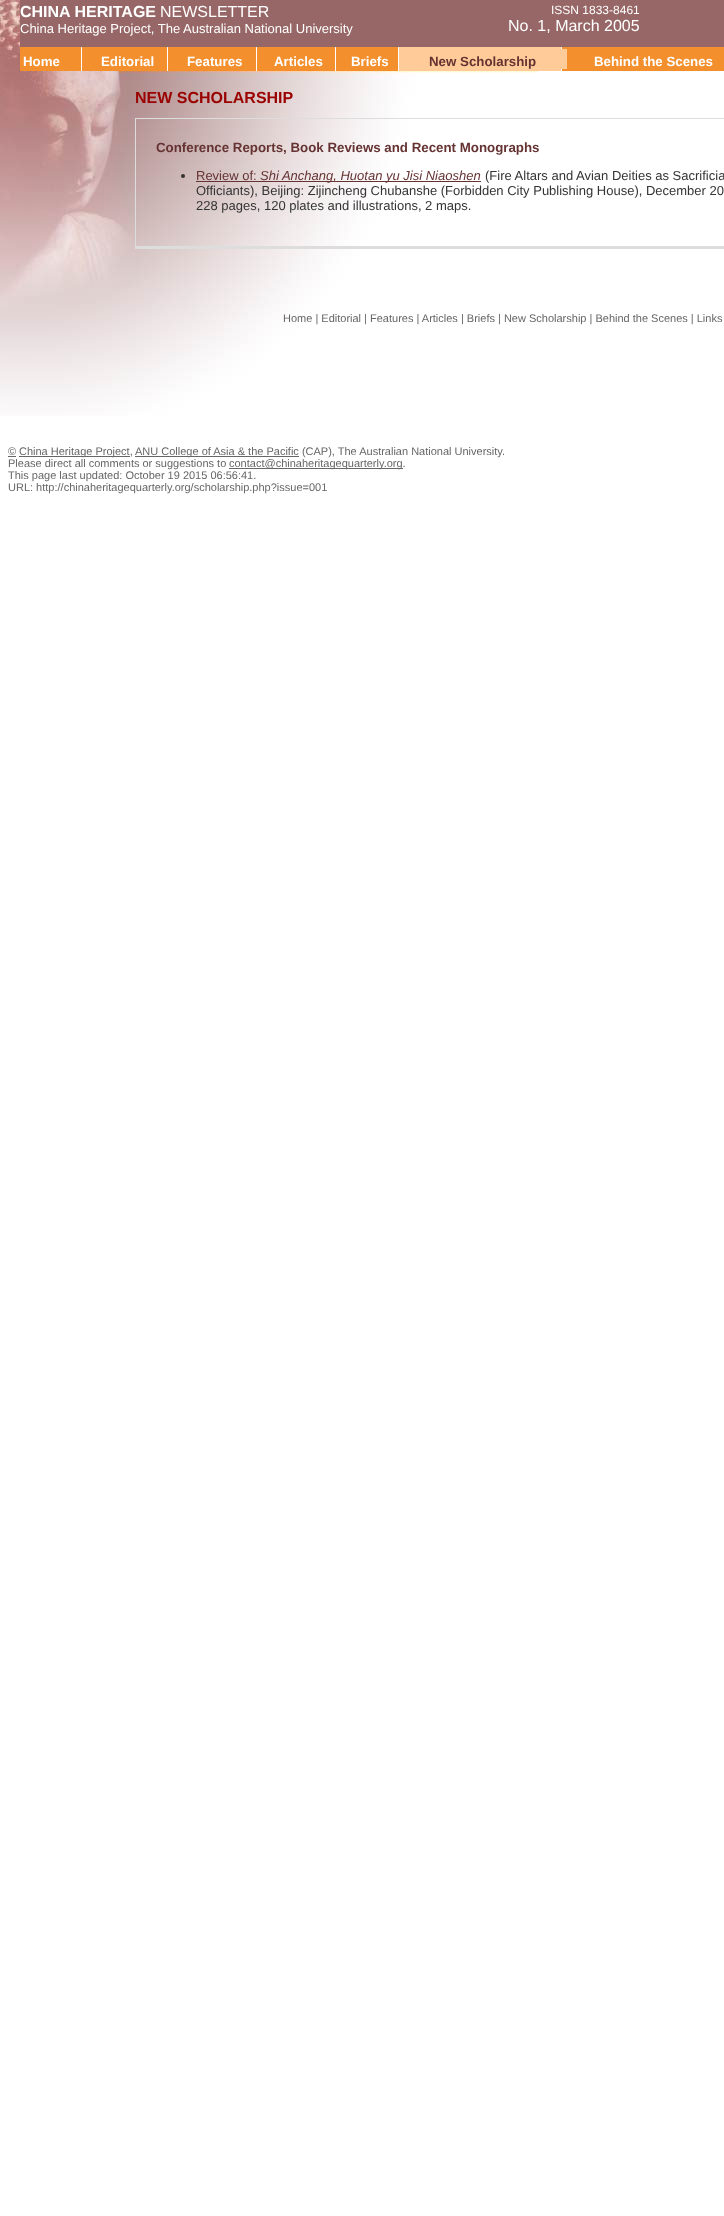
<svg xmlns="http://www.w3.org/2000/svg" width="724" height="2216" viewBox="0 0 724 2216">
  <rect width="100%" height="100%" fill="#ffffff"/>
  <image x="0" y="0" width="538" height="416" href="img1.png"/>
  <rect x="20" y="0" width="704" height="47" fill="#966766"/>
  <text x="20" y="17" font-family="Liberation Sans" font-size="16" font-weight="bold" fill="#ffffff">CHINA HERITAGE</text>
  <text x="160" y="17" font-family="Liberation Sans" font-size="16" fill="#ffffff">NEWSLETTER</text>
  <text x="20" y="33" font-family="Liberation Sans" font-size="13" fill="#ffffff">China Heritage Project, The Australian National University</text>
  <text x="551" y="14" font-family="Liberation Sans" font-size="12" fill="#ffffff">ISSN 1833-8461</text>
  <text x="508" y="31" font-family="Liberation Sans" font-size="16" fill="#ffffff">No. 1, March 2005</text>
  <rect x="20" y="47" width="704" height="24" fill="#f38f2c"/>
  <rect x="81" y="47" width="1" height="24" fill="#ffffff"/>
  <text x="23" y="66" font-family="Liberation Sans" font-size="13.3" font-weight="bold" fill="#ffffff">Home</text>
  <rect x="167" y="47" width="1" height="24" fill="#ffffff"/>
  <text x="101" y="66" font-family="Liberation Sans" font-size="13.3" font-weight="bold" fill="#ffffff">Editorial</text>
  <rect x="256" y="47" width="1" height="24" fill="#ffffff"/>
  <text x="187" y="66" font-family="Liberation Sans" font-size="13.3" font-weight="bold" fill="#ffffff">Features</text>
  <rect x="335" y="47" width="1" height="24" fill="#ffffff"/>
  <text x="274" y="66" font-family="Liberation Sans" font-size="13.3" font-weight="bold" fill="#ffffff">Articles</text>
  <rect x="398" y="47" width="1" height="24" fill="#ffffff"/>
  <text x="351" y="66" font-family="Liberation Sans" font-size="13.3" font-weight="bold" fill="#ffffff">Briefs</text>
  <rect x="399" y="47" width="162" height="24" fill="#ffcc99"/>
  <rect x="561" y="47" width="1" height="24" fill="#ffffff"/>
  <rect x="561" y="49" width="6" height="20" fill="#ffcc99"/>
  <text x="429" y="66" font-family="Liberation Sans" font-size="13.3" font-weight="bold" fill="#663333">New Scholarship</text>
  <text x="594" y="66" font-family="Liberation Sans" font-size="13.3" font-weight="bold" fill="#ffffff">Behind the Scenes</text>
  <text x="135" y="103" font-family="Liberation Sans" font-size="16" font-weight="bold" fill="#9a0000">NEW SCHOLARSHIP</text>
  <rect x="135" y="118" width="589" height="1" fill="#dddddd"/>
  <rect x="135" y="246" width="589" height="3" fill="#dddddd"/>
  <rect x="135" y="118" width="1" height="131" fill="#dddddd"/>
  <text x="156" y="152" font-family="Liberation Sans" font-size="13.3" font-weight="bold" fill="#663333">Conference Reports, Book Reviews and Recent Monographs</text>
  <circle cx="183" cy="176" r="2" fill="#343434"/>
  <text x="196" y="180" font-family="Liberation Sans" font-size="13" fill="#663333">Review of:</text>
  <rect x="196" y="181" width="285" height="1" fill="#663333"/>
  <text x="260" y="180" font-family="Liberation Sans" font-size="13" font-style="italic" fill="#663333">Shi Anchang, Huotan yu Jisi Niaoshen</text>
  <text x="485" y="180" font-family="Liberation Sans" font-size="13" fill="#343434">(Fire Altars and Avian Deities as Sacrificia</text>
  <text x="196" y="195" font-family="Liberation Sans" font-size="13" fill="#343434">Officiants), Beijing: Zijincheng Chubanshe (Forbidden City Publishing House), December 20</text>
  <text x="196" y="210" font-family="Liberation Sans" font-size="13" fill="#343434">228 pages, 120 plates and illustrations, 2 maps.</text>
  <text x="283" y="322" font-family="Liberation Sans" font-size="11" fill="#666666">Home | Editorial | Features | Articles | Briefs | New Scholarship | Behind the Scenes | Links</text>
  <text x="8" y="455" font-family="Liberation Sans" font-size="11" fill="#666666">©</text>
  <rect x="8" y="456" width="8" height="1" fill="#666666"/>
  <rect x="19" y="456" width="111" height="1" fill="#666666"/>
  <text x="19" y="455" font-family="Liberation Sans" font-size="11" fill="#666666">China Heritage Project,</text>
  <rect x="135" y="456" width="164" height="1" fill="#666666"/>
  <text x="135" y="455" font-family="Liberation Sans" font-size="11" fill="#666666">ANU College of Asia &amp; the Pacific (CAP), The Australian National University.</text>
  <text x="8" y="467" font-family="Liberation Sans" font-size="11" fill="#666666">Please direct all comments or suggestions to</text>
  <rect x="229" y="468" width="174" height="1" fill="#666666"/>
  <text x="229" y="467" font-family="Liberation Sans" font-size="11" fill="#666666">contact@chinaheritagequarterly.org.</text>
  <text x="8" y="479" font-family="Liberation Sans" font-size="11" fill="#666666">This page last updated: October 19 2015 06:56:41.</text>
  <text x="8" y="491" font-family="Liberation Sans" font-size="11" fill="#666666">URL: http://chinaheritagequarterly.org/scholarship.php?issue=001</text>
</svg>
